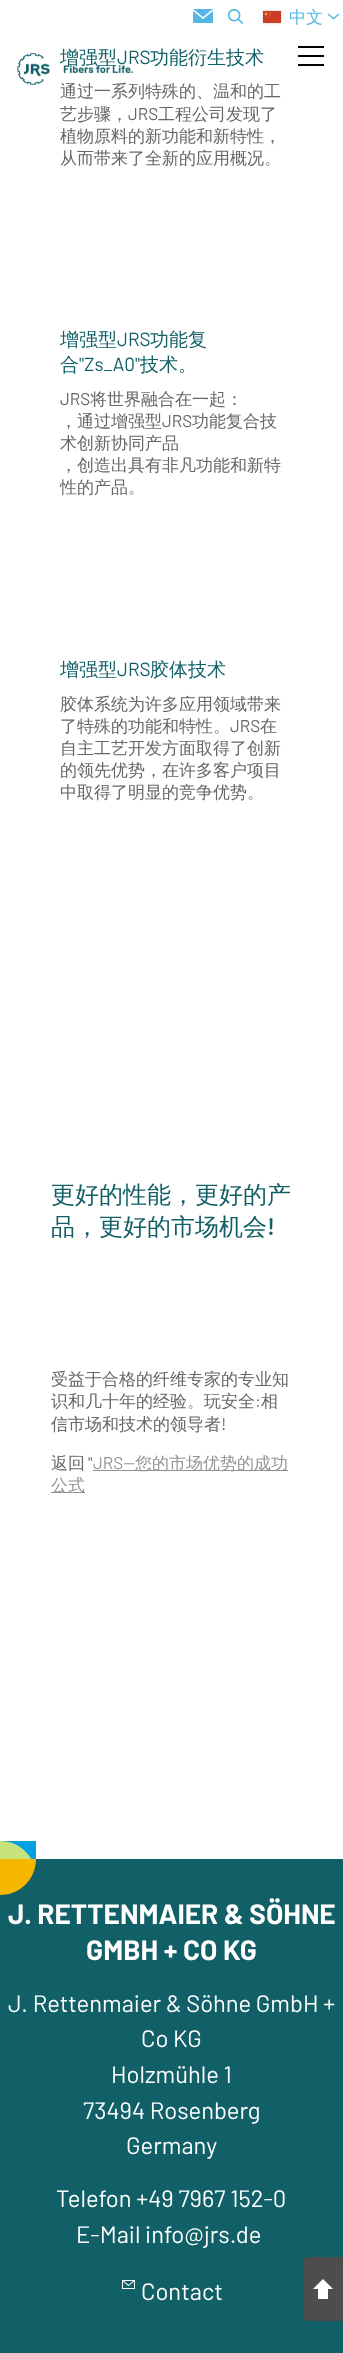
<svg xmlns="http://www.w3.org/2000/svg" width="343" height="2353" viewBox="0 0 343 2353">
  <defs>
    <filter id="blur1" x="-50%" y="-200%" width="200%" height="500%"><feGaussianBlur stdDeviation="1.5"/></filter>
  </defs>
  <rect width="100%" height="100%" fill="#ffffff"/>
  <image x="193" y="9" width="20" height="14" href="img1.png"/>
  <image x="227" y="9" width="16" height="15" href="img2.png"/>
  <rect x="263" y="11" width="18" height="12" fill="#000000" fill-opacity="0.2" filter="url(#blur1)"/>
  <image x="263" y="11" width="18" height="12" href="img3.png"/>
  <text x="289" y="23" font-family="WenQuanYi Zen Hei" font-size="17" font-weight="500" fill="#56b7e6">中文</text>
  <path d="M328.5 13.5L334.5 18.5L333.5 19.5L327.5 14.5Z" fill="#56b7e6"/>
  <path d="M332.5 18.5L338.5 13.5L339.5 14.5L333.5 19.5Z" fill="#56b7e6"/>
  <text x="60" y="64" font-family="WenQuanYi Zen Hei" font-size="19" font-weight="500" fill="#115f67">增强型</text>
  <text x="117" y="64" font-family="Barlow" font-size="19" fill="#115f67">JRS</text>
  <text x="60" y="97" font-family="WenQuanYi Zen Hei" font-size="17" font-weight="500" fill="#666666">通过一系列特殊的、温和的工</text>
  <image x="17" y="53" width="117" height="32" href="img4.png"/>
  <rect x="298" y="46" width="26" height="2" fill="#000000"/>
  <rect x="298" y="55" width="26" height="2" fill="#000000"/>
  <rect x="298" y="64" width="26" height="2" fill="#000000"/>
  <text x="150" y="64" font-family="WenQuanYi Zen Hei" font-size="19" font-weight="500" fill="#115f67">功能衍生技术</text>
  <text x="60" y="120" font-family="WenQuanYi Zen Hei" font-size="17" font-weight="500" fill="#666666">艺步骤，</text>
  <text x="128" y="120" font-family="Barlow" font-size="17" fill="#666666">JRS</text>
  <text x="158" y="120" font-family="WenQuanYi Zen Hei" font-size="17" font-weight="500" fill="#666666">工程公司发现了</text>
  <text x="60" y="142" font-family="WenQuanYi Zen Hei" font-size="17" font-weight="500" fill="#666666">植物原料的新功能和新特性，</text>
  <text x="60" y="164" font-family="WenQuanYi Zen Hei" font-size="17" font-weight="500" fill="#666666">从而带来了全新的应用概况。</text>
  <text x="60" y="346" font-family="WenQuanYi Zen Hei" font-size="19" font-weight="500" fill="#115f67">增强型</text>
  <text x="117" y="346" font-family="Barlow" font-size="19" fill="#115f67">JRS</text>
  <text x="150" y="346" font-family="WenQuanYi Zen Hei" font-size="19" font-weight="500" fill="#115f67">功能复</text>
  <text x="60" y="371" font-family="WenQuanYi Zen Hei" font-size="19" font-weight="500" fill="#115f67">合</text>
  <text x="79" y="371" font-family="Barlow" font-size="19" fill="#115f67">"Zs_A0"</text>
  <text x="140" y="371" font-family="WenQuanYi Zen Hei" font-size="19" font-weight="500" fill="#115f67">技术。</text>
  <text x="60" y="405" font-family="Barlow" font-size="17" fill="#666666">JRS</text>
  <text x="90" y="405" font-family="WenQuanYi Zen Hei" font-size="17" font-weight="500" fill="#666666">将世界融合在一起：</text>
  <text x="60" y="427" font-family="WenQuanYi Zen Hei" font-size="17" font-weight="500" fill="#666666">，通过增强型</text>
  <text x="162" y="427" font-family="Barlow" font-size="17" fill="#666666">JRS</text>
  <text x="192" y="427" font-family="WenQuanYi Zen Hei" font-size="17" font-weight="500" fill="#666666">功能复合技</text>
  <text x="60" y="449" font-family="WenQuanYi Zen Hei" font-size="17" font-weight="500" fill="#666666">术创新协同产品</text>
  <text x="60" y="471" font-family="WenQuanYi Zen Hei" font-size="17" font-weight="500" fill="#666666">，创造出具有非凡功能和新特</text>
  <text x="60" y="493" font-family="WenQuanYi Zen Hei" font-size="17" font-weight="500" fill="#666666">性的产品。</text>
  <text x="60" y="676" font-family="WenQuanYi Zen Hei" font-size="19" font-weight="500" fill="#115f67">增强型</text>
  <text x="117" y="676" font-family="Barlow" font-size="19" fill="#115f67">JRS</text>
  <text x="150" y="676" font-family="WenQuanYi Zen Hei" font-size="19" font-weight="500" fill="#115f67">胶体技术</text>
  <text x="60" y="710" font-family="WenQuanYi Zen Hei" font-size="17" font-weight="500" fill="#666666">胶体系统为许多应用领域带来</text>
  <text x="60" y="732" font-family="WenQuanYi Zen Hei" font-size="17" font-weight="500" fill="#666666">了特殊的功能和特性。</text>
  <text x="230" y="732" font-family="Barlow" font-size="17" fill="#666666">JRS</text>
  <text x="260" y="732" font-family="WenQuanYi Zen Hei" font-size="17" font-weight="500" fill="#666666">在</text>
  <text x="60" y="754" font-family="WenQuanYi Zen Hei" font-size="17" font-weight="500" fill="#666666">自主工艺开发方面取得了创新</text>
  <text x="60" y="776" font-family="WenQuanYi Zen Hei" font-size="17" font-weight="500" fill="#666666">的领先优势，在许多客户项目</text>
  <text x="60" y="798" font-family="WenQuanYi Zen Hei" font-size="17" font-weight="500" fill="#666666">中取得了明显的竞争优势。</text>
  <text x="51" y="1203" font-family="WenQuanYi Zen Hei" font-size="24" font-weight="500" fill="#115f67">更好的性能，更好的产</text>
  <text x="51" y="1235" font-family="WenQuanYi Zen Hei" font-size="24" font-weight="500" fill="#115f67">品，更好的市场机会</text>
  <text x="267" y="1235" font-family="Barlow" font-size="24" font-weight="600" fill="#115f67">!</text>
  <text x="51" y="1385" font-family="WenQuanYi Zen Hei" font-size="17" font-weight="500" fill="#666666">受益于合格的纤维专家的专业知</text>
  <text x="51" y="1407" font-family="WenQuanYi Zen Hei" font-size="17" font-weight="500" fill="#666666">识和几十年的经验。玩安全</text>
  <text x="255" y="1407" font-family="Barlow" font-size="17" fill="#666666">:</text>
  <text x="261" y="1407" font-family="WenQuanYi Zen Hei" font-size="17" font-weight="500" fill="#666666">相</text>
  <text x="51" y="1430" font-family="WenQuanYi Zen Hei" font-size="17" font-weight="500" fill="#666666">信市场和技术的领导者</text>
  <text x="221" y="1430" font-family="Barlow" font-size="17" fill="#666666">!</text>
  <text x="51" y="1469" font-family="WenQuanYi Zen Hei" font-size="17" font-weight="500" fill="#666666">返回</text>
  <text x="88" y="1469" font-family="Barlow" font-size="17" fill="#666666">"</text>
  <text x="93" y="1469" font-family="Barlow" font-size="17" fill="#949494">JRS--</text>
  <rect x="93" y="1470" width="195" height="1" fill="#949494"/>
  <text x="135" y="1469" font-family="WenQuanYi Zen Hei" font-size="17" font-weight="500" fill="#949494">您的市场优势的成功</text>
  <rect x="51" y="1492" width="34" height="1" fill="#949494"/>
  <text x="51" y="1491" font-family="WenQuanYi Zen Hei" font-size="17" font-weight="500" fill="#949494">公式</text>
  <rect x="0" y="1841" width="36" height="18" fill="#00a0e3"/>
  <path d="M0 1841C20 1841 36 1857 36 1877H0Z" fill="#c8e379"/>
  <rect x="0" y="1859" width="343" height="494" fill="#115f67"/>
  <path d="M0 1859H36C36 1879 20 1895 0 1895Z" fill="#f6b700"/>
  <text x="8" y="1924" font-family="Barlow" font-size="28" font-weight="bold" fill="#ffffff">J. RETTENMAIER &amp; SÖHNE</text>
  <text x="86" y="1960" font-family="Barlow" font-size="28" font-weight="bold" fill="#ffffff">GMBH + CO KG</text>
  <text x="8" y="2012" font-family="Barlow" font-size="23.75" fill="#ffffff">J. Rettenmaier &amp; Söhne GmbH +</text>
  <text x="141" y="2047" font-family="Barlow" font-size="23.75" fill="#ffffff">Co KG</text>
  <text x="111" y="2083" font-family="Barlow" font-size="23.75" fill="#ffffff">Holzmühle 1</text>
  <text x="83" y="2119" font-family="Barlow" font-size="23.75" fill="#ffffff">73494 Rosenberg</text>
  <text x="126" y="2154" font-family="Barlow" font-size="23.75" fill="#ffffff">Germany</text>
  <text x="56" y="2207" font-family="Barlow" font-size="23.75" fill="#ffffff">Telefon +49 7967 152-0</text>
  <text x="76" y="2243" font-family="Barlow" font-size="23.75" fill="#ffffff">E-Mail info@jrs.de</text>
  <image x="122" y="2280" width="13" height="9" href="img5.png"/>
  <text x="141" y="2300" font-family="Barlow" font-size="23.75" fill="#ffffff">Contact</text>
  <path d="M309 2257H343V2321H309C305.5 2321 303 2318.5 303 2315V2263C303 2259.5 305.5 2257 309 2257Z" fill="#4d4d4d"/>
  <path d="M333 2289H313L323 2279Z" fill="#ffffff"/>
  <rect x="318" y="2289" width="10" height="10" fill="#ffffff"/>
</svg>
